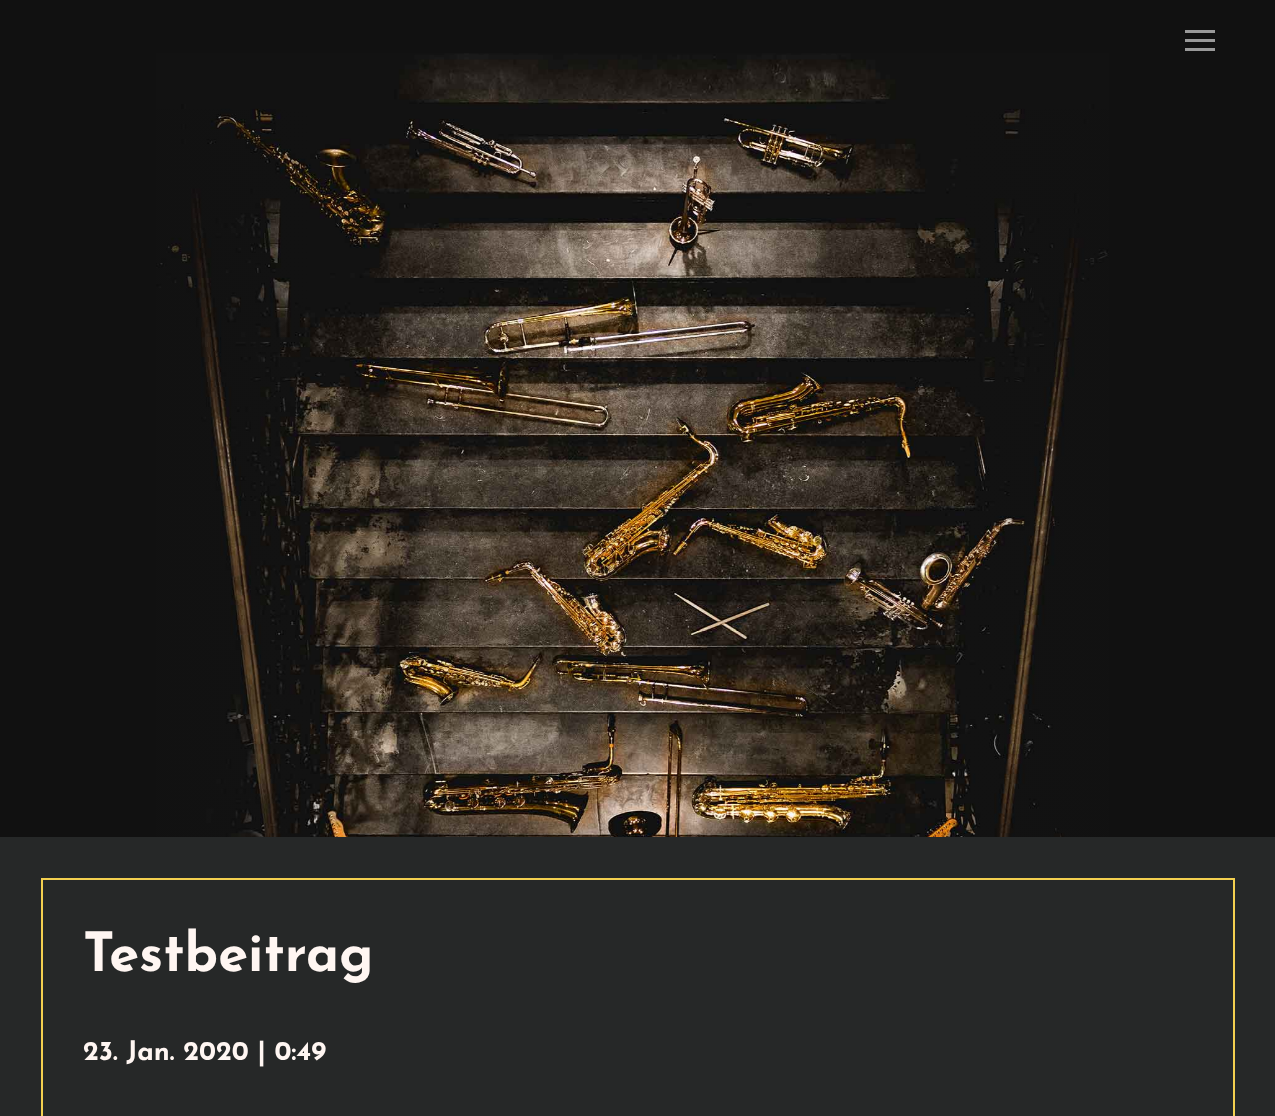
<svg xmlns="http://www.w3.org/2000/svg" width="1275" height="1116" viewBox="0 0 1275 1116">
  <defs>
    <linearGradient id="g1" gradientUnits="userSpaceOnUse" x1="0" y1="558" x2="1275" y2="558"><stop offset="0" stop-color="#111111"/><stop offset="0.25" stop-color="#111111" stop-opacity="0"/><stop offset="0.75" stop-color="#111111" stop-opacity="0"/><stop offset="1" stop-color="#111111"/></linearGradient>
  </defs>
  <rect width="100%" height="100%" fill="#111111"/>
  <rect x="1185" y="39" width="30" height="3" fill="#999999"/>
  <rect x="1185" y="30" width="30" height="3" fill="#999999"/>
  <rect x="1185" y="48" width="30" height="3" fill="#999999"/>
  <image x="156" y="53" width="953" height="784" href="img1.png"/>
  <rect x="156" y="109" width="953" height="728" fill="url(#g1)"/>
  <rect x="0" y="837" width="1275" height="279" fill="#262828"/>
  <rect x="42" y="879" width="1192" height="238" fill="none" stroke="#f3d050" stroke-width="2"/>
  <text x="83" y="971" font-family="Josefin Sans" font-size="54" font-weight="bold" fill="#fff6f2">Testbeitrag</text>
  <text x="83" y="1060" font-family="Josefin Sans" font-size="27" font-weight="bold" fill="#fff6f2">23. Jan. 2020 | 0:49</text>
</svg>
